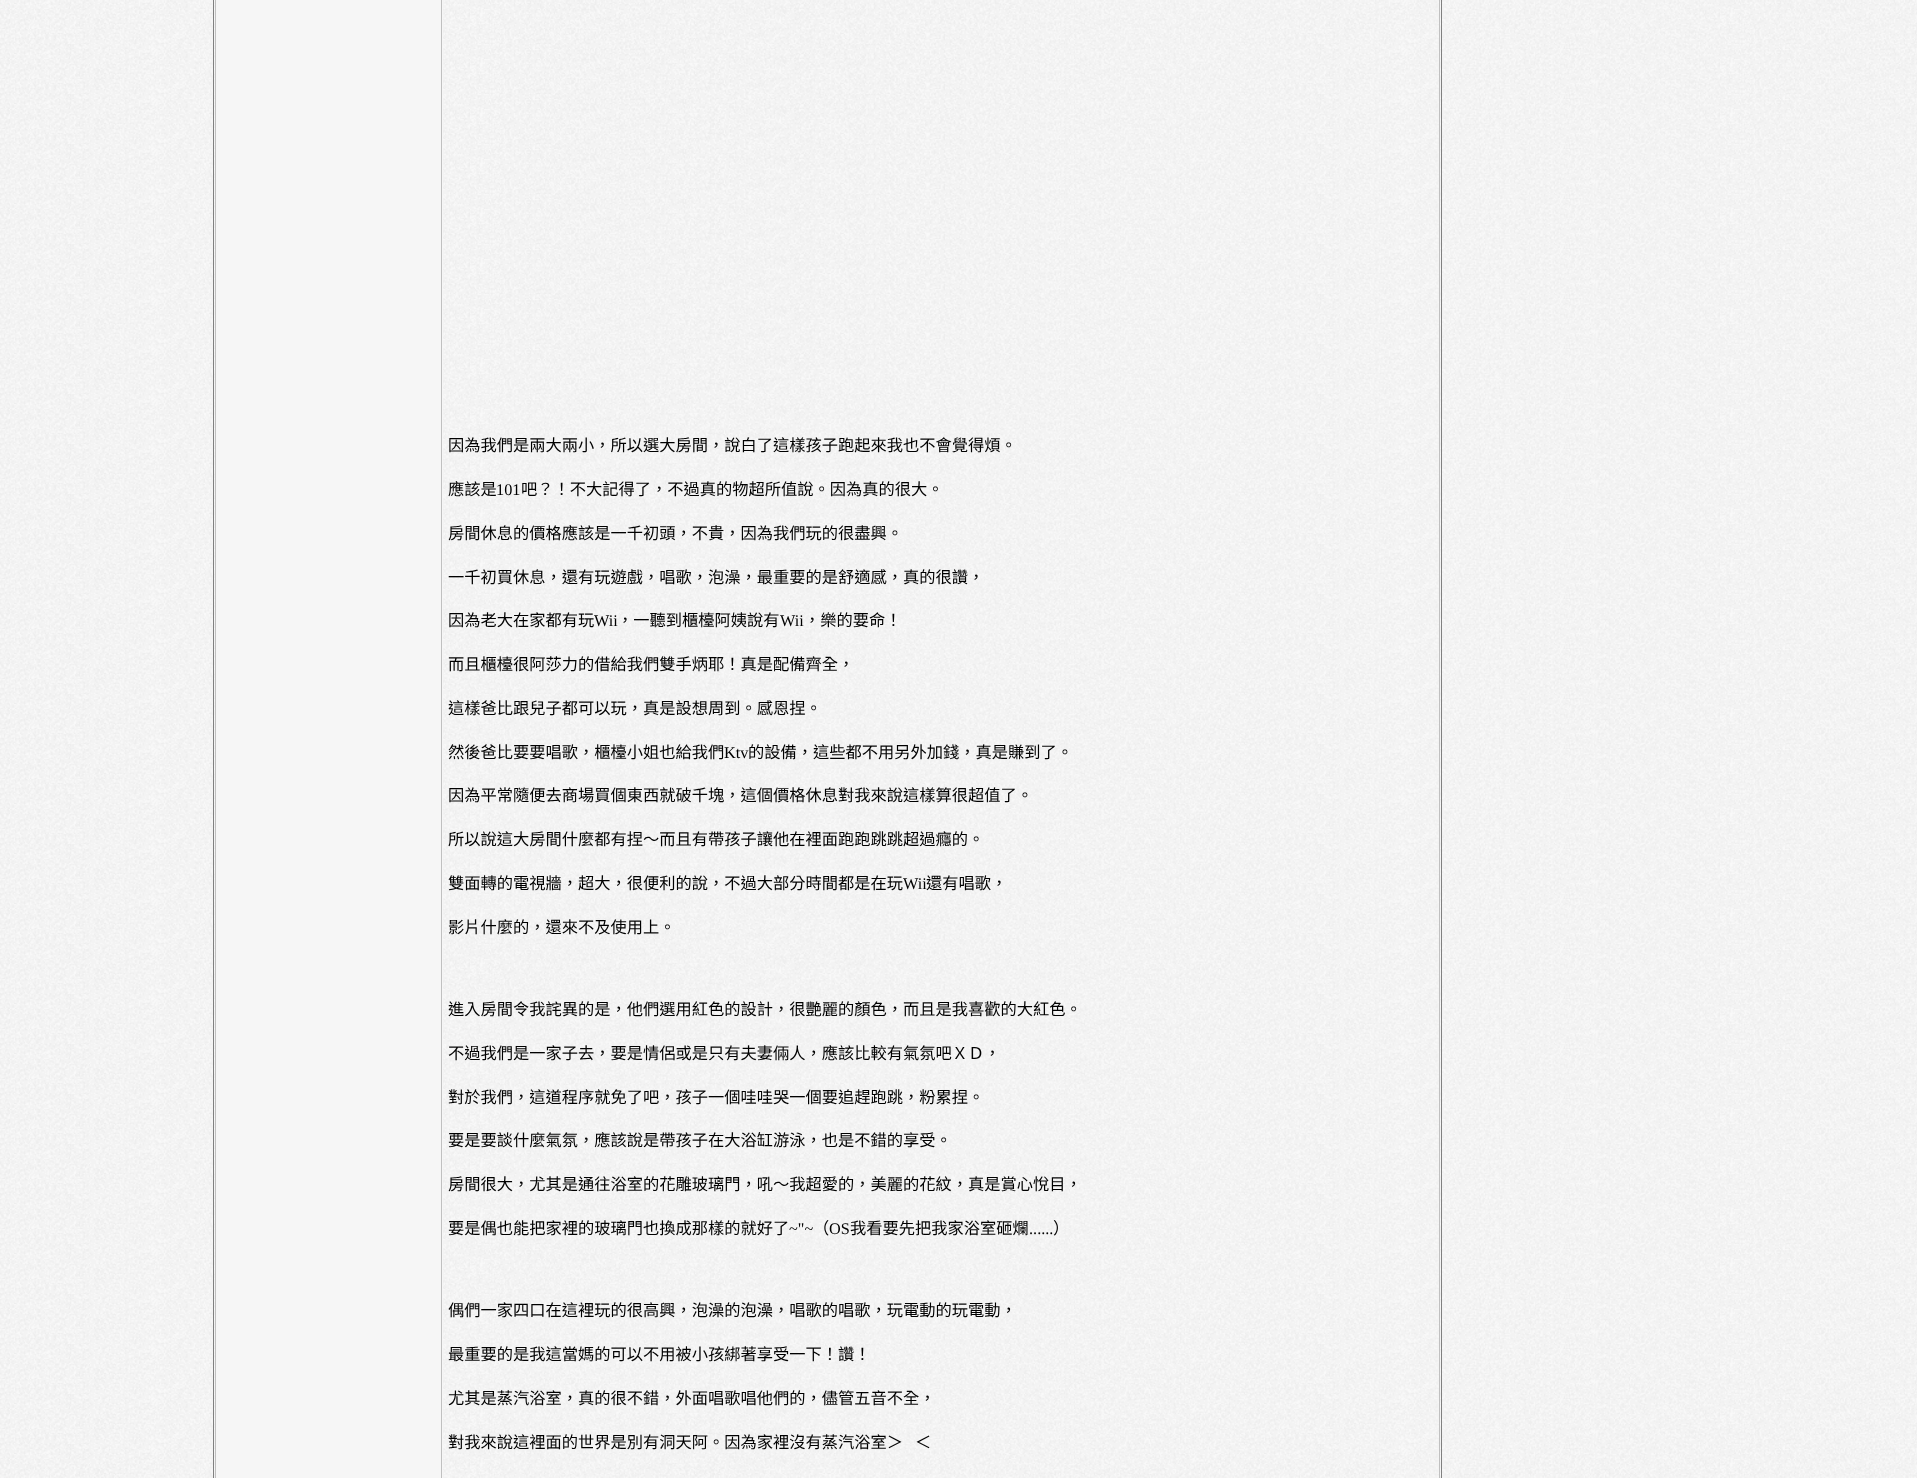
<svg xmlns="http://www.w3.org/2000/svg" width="1917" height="1478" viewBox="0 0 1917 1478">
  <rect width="100%" height="100%" fill="#ffffff"/>
  <image x="0" y="0" width="1917" height="1478" href="img1.png"/>
  <rect x="1441" y="0" width="1" height="1478" fill="#808080"/>
  <rect x="213" y="0" width="1" height="1478" fill="#808080"/>
  <rect x="1439" y="0" width="1" height="1478" fill="#c0c0c0"/>
  <rect x="215" y="0" width="1" height="1478" fill="#c0c0c0"/>
  <rect x="216" y="0" width="227" height="1478" fill="#f6f6f6"/>
  <rect x="441" y="0" width="1" height="1478" fill="#c0c0c0"/>
  <text x="448" y="451" font-family="Noto Sans CJK TC" font-size="16.25" fill="#000000">因為我們是兩大兩小，所以選大房間，說白了這樣孩子跑起來我也不會覺得煩。</text>
  <text x="448" y="495" font-family="Noto Sans CJK TC" font-size="16.25" fill="#000000">應該是</text>
  <text x="496" y="495" font-family="Liberation Serif" font-size="16.25" fill="#000000">101</text>
  <text x="521" y="495" font-family="Noto Sans CJK TC" font-size="16.25" fill="#000000">吧？！不大記得了，不過真的物超所值說。因為真的很大。</text>
  <text x="448" y="539" font-family="Noto Sans CJK TC" font-size="16.25" fill="#000000">房間休息的價格應該是一千初頭，不貴，因為我們玩的很盡興。</text>
  <text x="448" y="583" font-family="Noto Sans CJK TC" font-size="16.25" fill="#000000">一千初買休息，還有玩遊戲，唱歌，泡澡，最重要的是舒適感，真的很讚，</text>
  <text x="448" y="626" font-family="Noto Sans CJK TC" font-size="16.25" fill="#000000">因為老大在家都有玩</text>
  <text x="594" y="626" font-family="Liberation Serif" font-size="16.25" fill="#000000">Wii</text>
  <text x="617" y="626" font-family="Noto Sans CJK TC" font-size="16.25" fill="#000000">，一聽到櫃檯阿姨說有</text>
  <text x="780" y="626" font-family="Liberation Serif" font-size="16.25" fill="#000000">Wii</text>
  <text x="804" y="626" font-family="Noto Sans CJK TC" font-size="16.25" fill="#000000">，樂的要命！</text>
  <text x="448" y="670" font-family="Noto Sans CJK TC" font-size="16.25" fill="#000000">而且櫃檯很阿莎力的借給我們雙手炳耶！真是配備齊全，</text>
  <text x="448" y="714" font-family="Noto Sans CJK TC" font-size="16.25" fill="#000000">這樣爸比跟兒子都可以玩，真是設想周到。感恩捏。</text>
  <text x="448" y="758" font-family="Noto Sans CJK TC" font-size="16.25" fill="#000000">然後爸比要要唱歌，櫃檯小姐也給我們</text>
  <text x="724" y="758" font-family="Liberation Serif" font-size="16.25" fill="#000000">Ktv</text>
  <text x="748" y="758" font-family="Noto Sans CJK TC" font-size="16.25" fill="#000000">的設備，這些都不用另外加錢，真是賺到了。</text>
  <text x="448" y="801" font-family="Noto Sans CJK TC" font-size="16.25" fill="#000000">因為平常隨便去商場買個東西就破千塊，這個價格休息對我來說這樣算很超值了。</text>
  <text x="448" y="845" font-family="Noto Sans CJK TC" font-size="16.25" fill="#000000">所以說這大房間什麼都有捏～而且有帶孩子讓他在裡面跑跑跳跳超過癮的。</text>
  <text x="448" y="889" font-family="Noto Sans CJK TC" font-size="16.25" fill="#000000">雙面轉的電視牆，超大，很便利的說，不過大部分時間都是在玩</text>
  <text x="903" y="889" font-family="Liberation Serif" font-size="16.25" fill="#000000">Wii</text>
  <text x="926" y="889" font-family="Noto Sans CJK TC" font-size="16.25" fill="#000000">還有唱歌，</text>
  <text x="448" y="933" font-family="Noto Sans CJK TC" font-size="16.25" fill="#000000">影片什麼的，還來不及使用上。</text>
  <text x="448" y="1015" font-family="Noto Sans CJK TC" font-size="16.25" fill="#000000">進入房間令我詫異的是，他們選用紅色的設計，很艷麗的顏色，而且是我喜歡的大紅色。</text>
  <text x="448" y="1059" font-family="Noto Sans CJK TC" font-size="16.25" fill="#000000">不過我們是一家子去，要是情侶或是只有夫妻倆人，應該比較有氣氛吧ＸＤ，</text>
  <text x="448" y="1103" font-family="Noto Sans CJK TC" font-size="16.25" fill="#000000">對於我們，這道程序就免了吧，孩子一個哇哇哭一個要追趕跑跳，粉累捏。</text>
  <text x="448" y="1146" font-family="Noto Sans CJK TC" font-size="16.25" fill="#000000">要是要談什麼氣氛，應該說是帶孩子在大浴缸游泳，也是不錯的享受。</text>
  <text x="448" y="1190" font-family="Noto Sans CJK TC" font-size="16.25" fill="#000000">房間很大，尤其是通往浴室的花雕玻璃門，吼～我超愛的，美麗的花紋，真是賞心悅目，</text>
  <text x="448" y="1234" font-family="Noto Sans CJK TC" font-size="16.25" fill="#000000">要是偶也能把家裡的玻璃門也換成那樣的就好了</text>
  <text x="789" y="1234" font-family="Liberation Serif" font-size="16.25" fill="#000000">~"~</text>
  <text x="813" y="1234" font-family="Noto Sans CJK TC" font-size="16.25" fill="#000000">（</text>
  <text x="829" y="1234" font-family="Liberation Serif" font-size="16.25" fill="#000000">OS</text>
  <text x="850" y="1234" font-family="Noto Sans CJK TC" font-size="16.25" fill="#000000">我看要先把我家浴室砸爛</text>
  <text x="1029" y="1234" font-family="Liberation Serif" font-size="16.25" fill="#000000">......</text>
  <text x="1053" y="1234" font-family="Noto Sans CJK TC" font-size="16.25" fill="#000000">）</text>
  <text x="448" y="1316" font-family="Noto Sans CJK TC" font-size="16.25" fill="#000000">偶們一家四口在這裡玩的很高興，泡澡的泡澡，唱歌的唱歌，玩電動的玩電動，</text>
  <text x="448" y="1360" font-family="Noto Sans CJK TC" font-size="16.25" fill="#000000">最重要的是我這當媽的可以不用被小孩綁著享受一下！讚！</text>
  <text x="448" y="1404" font-family="Noto Sans CJK TC" font-size="16.25" fill="#000000">尤其是蒸汽浴室，真的很不錯，外面唱歌唱他們的，儘管五音不全，</text>
  <text x="448" y="1448" font-family="Noto Sans CJK TC" font-size="16.25" fill="#000000">對我來說這裡面的世界是別有洞天阿。因為家裡沒有蒸汽浴室＞</text>
  <text x="915" y="1448" font-family="Noto Sans CJK TC" font-size="16.25" fill="#000000">＜</text>
</svg>
